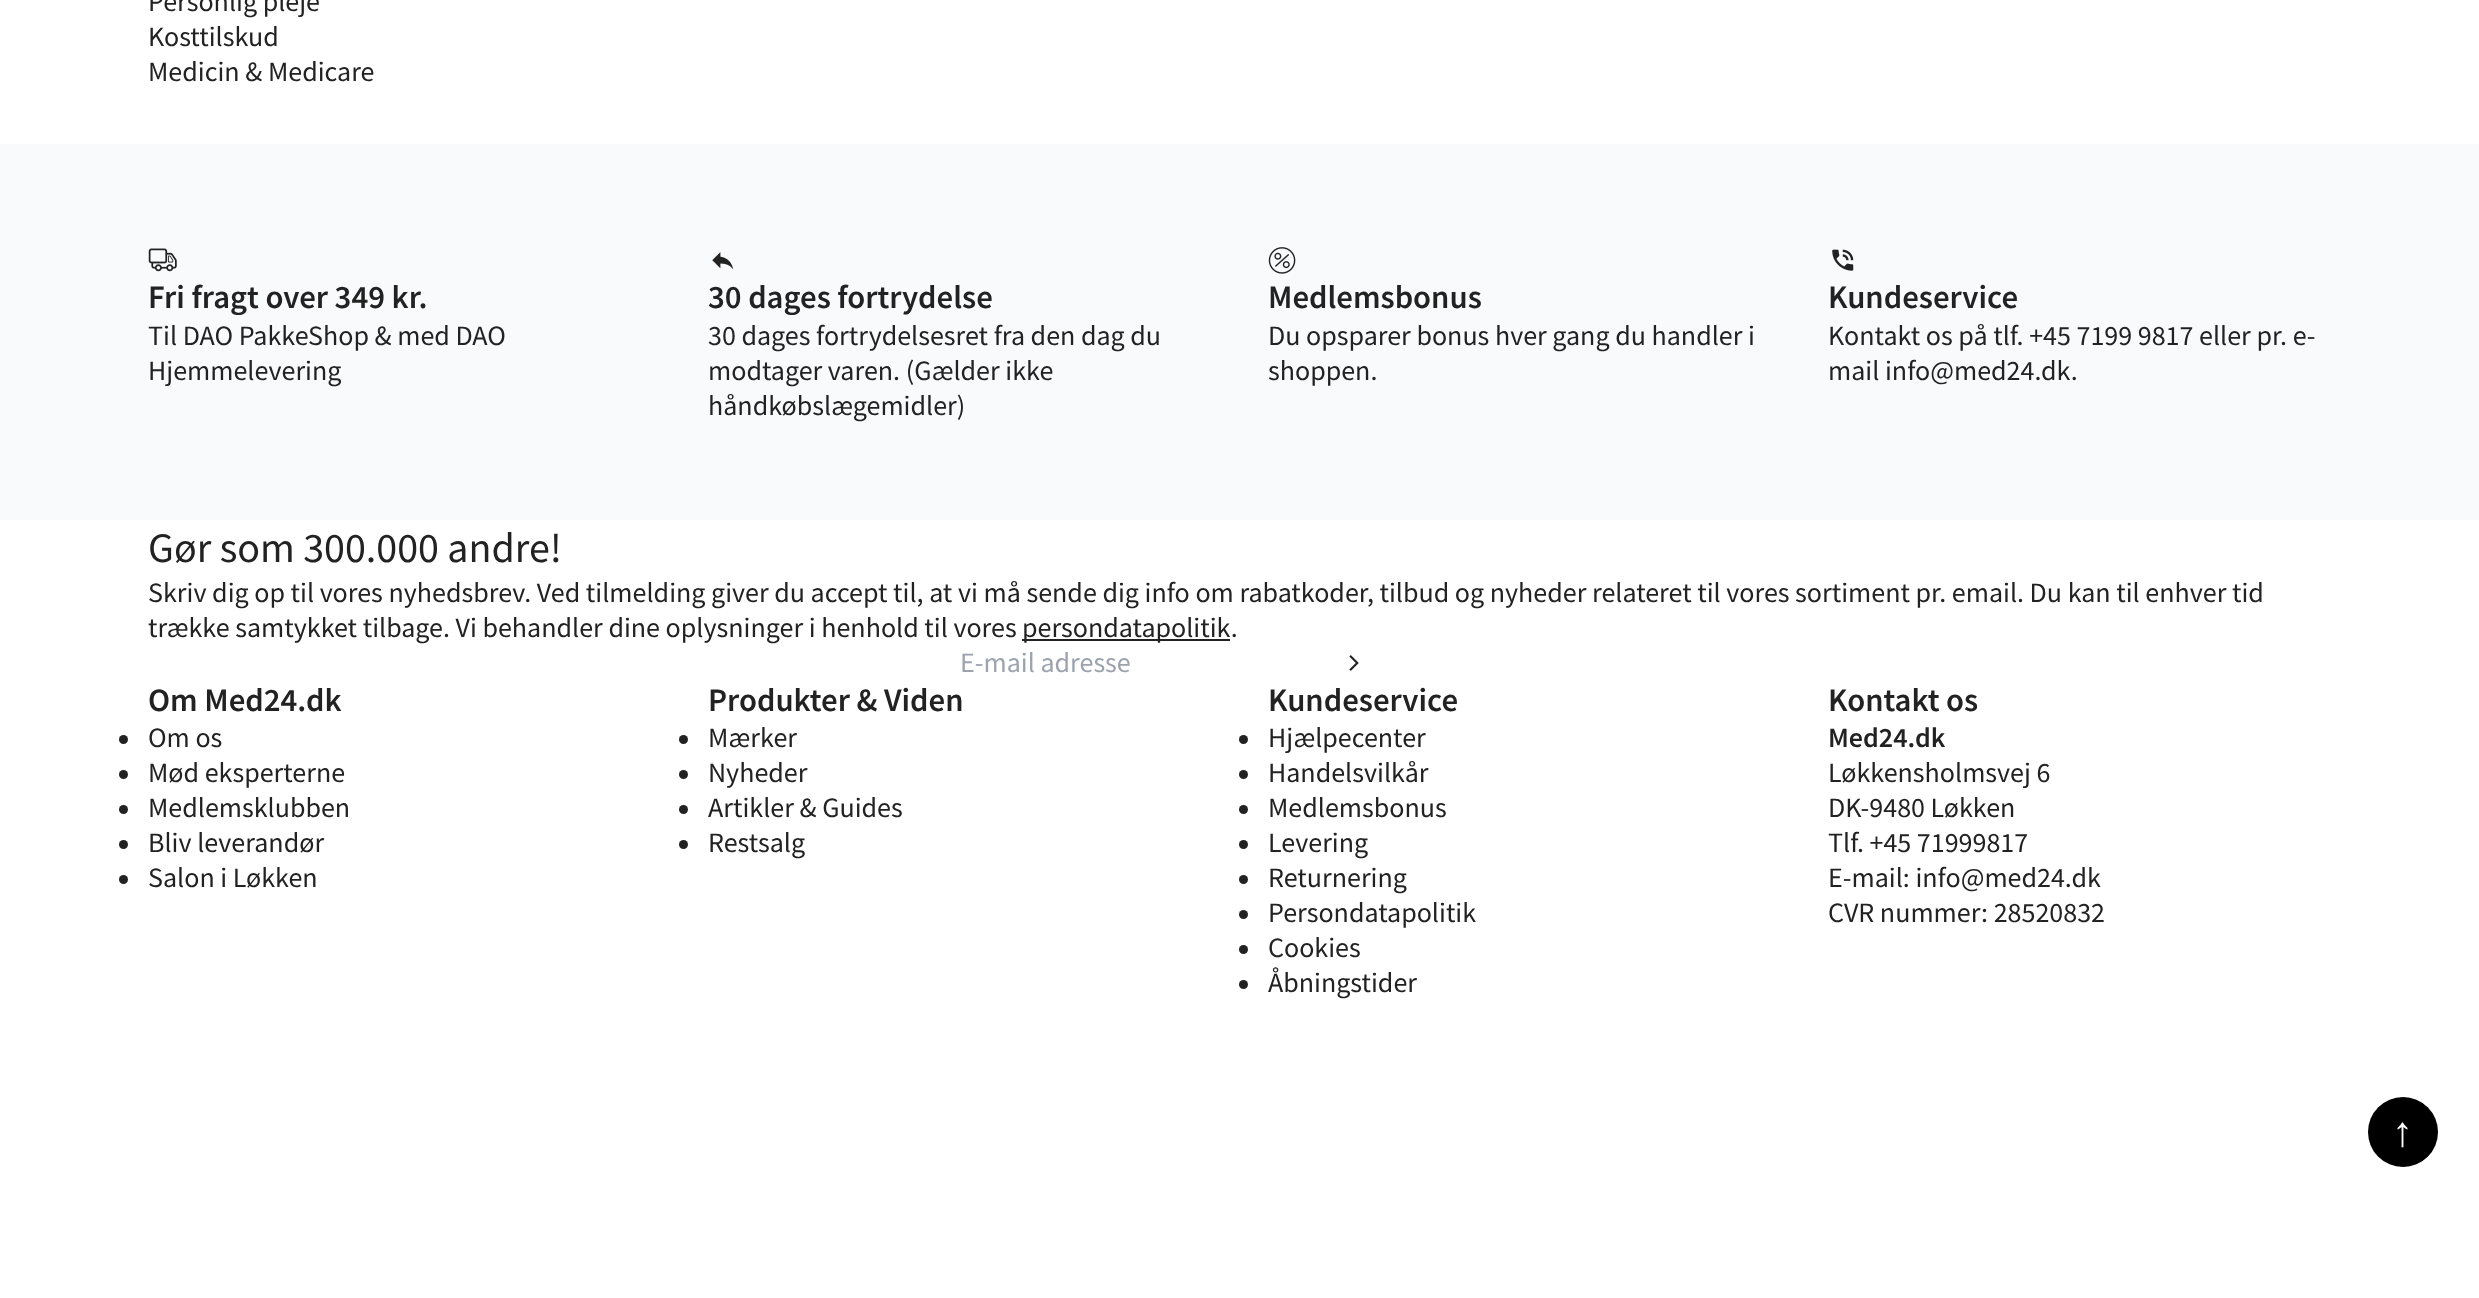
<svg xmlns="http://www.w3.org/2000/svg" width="2479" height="1298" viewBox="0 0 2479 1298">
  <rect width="100%" height="100%" fill="#ffffff"/>
  <text x="148" y="11" font-family="Source Sans Pro" font-size="28" fill="#222222">Personlig pleje</text>
  <text x="148" y="46" font-family="Source Sans Pro" font-size="28" fill="#222222">Kosttilskud</text>
  <text x="148" y="81" font-family="Source Sans Pro" font-size="28" fill="#222222">Medicin &amp; Medicare</text>
  <rect x="0" y="144" width="2479" height="376" fill="#f9fafb"/>
  <image x="148" y="248" width="29" height="24" href="img1.png"/>
  <text x="148" y="308" font-family="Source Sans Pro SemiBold" font-size="32.75" font-weight="600" fill="#222222">Fri fragt over 349 kr.</text>
  <text x="148" y="345" font-family="Source Sans Pro" font-size="28" fill="#222222">Til DAO PakkeShop &amp; med DAO</text>
  <text x="148" y="380" font-family="Source Sans Pro" font-size="28" fill="#222222">Hjemmelevering</text>
  <image x="712" y="252" width="22" height="18" href="img2.png"/>
  <text x="708" y="308" font-family="Source Sans Pro SemiBold" font-size="32.75" font-weight="600" fill="#222222">30 dages fortrydelse</text>
  <text x="708" y="345" font-family="Source Sans Pro" font-size="28" fill="#222222">30 dages fortrydelsesret fra den dag du</text>
  <text x="708" y="380" font-family="Source Sans Pro" font-size="28" fill="#222222">modtager varen. (Gælder ikke</text>
  <text x="708" y="415" font-family="Source Sans Pro" font-size="28" fill="#222222">håndkøbslægemidler)</text>
  <image x="1268" y="247" width="28" height="27" href="img3.png"/>
  <text x="1268" y="308" font-family="Source Sans Pro SemiBold" font-size="32.75" font-weight="600" fill="#222222">Medlemsbonus</text>
  <text x="1268" y="345" font-family="Source Sans Pro" font-size="28" fill="#222222">Du opsparer bonus hver gang du handler i</text>
  <text x="1268" y="380" font-family="Source Sans Pro" font-size="28" fill="#222222">shoppen.</text>
  <image x="1832" y="249" width="22" height="22" href="img4.png"/>
  <text x="1828" y="308" font-family="Source Sans Pro SemiBold" font-size="32.75" font-weight="600" fill="#222222">Kundeservice</text>
  <text x="1828" y="345" font-family="Source Sans Pro" font-size="28" fill="#222222">Kontakt os på tlf. +45 7199 9817 eller pr. e-</text>
  <text x="1828" y="380" font-family="Source Sans Pro" font-size="28" fill="#222222">mail info@med24.dk.</text>
  <text x="148" y="562" font-family="Source Sans Pro" font-size="42" fill="#222222">Gør som 300.000 andre!</text>
  <text x="148" y="602" font-family="Source Sans Pro" font-size="28" fill="#222222">Skriv dig op til vores nyhedsbrev. Ved tilmelding giver du accept til, at vi må sende dig info om rabatkoder, tilbud og nyheder relateret til vores sortiment pr. email. Du kan til enhver tid</text>
  <text x="148" y="637" font-family="Source Sans Pro" font-size="28" fill="#222222">trække samtykket tilbage. Vi behandler dine oplysninger i henhold til vores</text>
  <rect x="1022" y="639" width="208" height="2" fill="#222222"/>
  <text x="1022" y="637" font-family="Source Sans Pro" font-size="28" fill="#222222">persondatapolitik.</text>
  <text x="960" y="672" font-family="Source Sans Pro" font-size="28" fill="#9ca3af">E-mail adresse</text>
  <image x="1349" y="655" width="10" height="16" href="img5.png"/>
  <text x="148" y="711" font-family="Source Sans Pro SemiBold" font-size="32.75" font-weight="600" fill="#222222">Om Med24.dk</text>
  <circle cx="123.5" cy="739.5" r="4.5" fill="#222222"/>
  <text x="148" y="747" font-family="Source Sans Pro" font-size="28" fill="#222222">Om os</text>
  <circle cx="123.5" cy="774.5" r="4.5" fill="#222222"/>
  <text x="148" y="782" font-family="Source Sans Pro" font-size="28" fill="#222222">Mød eksperterne</text>
  <circle cx="123.5" cy="809.5" r="4.5" fill="#222222"/>
  <text x="148" y="817" font-family="Source Sans Pro" font-size="28" fill="#222222">Medlemsklubben</text>
  <circle cx="123.5" cy="844.5" r="4.5" fill="#222222"/>
  <text x="148" y="852" font-family="Source Sans Pro" font-size="28" fill="#222222">Bliv leverandør</text>
  <circle cx="123.5" cy="879.5" r="4.5" fill="#222222"/>
  <text x="148" y="887" font-family="Source Sans Pro" font-size="28" fill="#222222">Salon i Løkken</text>
  <text x="708" y="711" font-family="Source Sans Pro SemiBold" font-size="32.75" font-weight="600" fill="#222222">Produkter &amp; Viden</text>
  <circle cx="683.5" cy="739.5" r="4.5" fill="#222222"/>
  <text x="708" y="747" font-family="Source Sans Pro" font-size="28" fill="#222222">Mærker</text>
  <circle cx="683.5" cy="774.5" r="4.5" fill="#222222"/>
  <text x="708" y="782" font-family="Source Sans Pro" font-size="28" fill="#222222">Nyheder</text>
  <circle cx="683.5" cy="809.5" r="4.5" fill="#222222"/>
  <text x="708" y="817" font-family="Source Sans Pro" font-size="28" fill="#222222">Artikler &amp; Guides</text>
  <circle cx="683.5" cy="844.5" r="4.5" fill="#222222"/>
  <text x="708" y="852" font-family="Source Sans Pro" font-size="28" fill="#222222">Restsalg</text>
  <text x="1268" y="711" font-family="Source Sans Pro SemiBold" font-size="32.75" font-weight="600" fill="#222222">Kundeservice</text>
  <circle cx="1243.5" cy="739.5" r="4.5" fill="#222222"/>
  <text x="1268" y="747" font-family="Source Sans Pro" font-size="28" fill="#222222">Hjælpecenter</text>
  <circle cx="1243.5" cy="774.5" r="4.5" fill="#222222"/>
  <text x="1268" y="782" font-family="Source Sans Pro" font-size="28" fill="#222222">Handelsvilkår</text>
  <circle cx="1243.5" cy="809.5" r="4.5" fill="#222222"/>
  <text x="1268" y="817" font-family="Source Sans Pro" font-size="28" fill="#222222">Medlemsbonus</text>
  <circle cx="1243.5" cy="844.5" r="4.5" fill="#222222"/>
  <text x="1268" y="852" font-family="Source Sans Pro" font-size="28" fill="#222222">Levering</text>
  <circle cx="1243.5" cy="879.5" r="4.5" fill="#222222"/>
  <text x="1268" y="887" font-family="Source Sans Pro" font-size="28" fill="#222222">Returnering</text>
  <circle cx="1243.5" cy="914.5" r="4.5" fill="#222222"/>
  <text x="1268" y="922" font-family="Source Sans Pro" font-size="28" fill="#222222">Persondatapolitik</text>
  <circle cx="1243.5" cy="949.5" r="4.5" fill="#222222"/>
  <text x="1268" y="957" font-family="Source Sans Pro" font-size="28" fill="#222222">Cookies</text>
  <circle cx="1243.5" cy="984.5" r="4.5" fill="#222222"/>
  <text x="1268" y="992" font-family="Source Sans Pro" font-size="28" fill="#222222">Åbningstider</text>
  <text x="1828" y="711" font-family="Source Sans Pro SemiBold" font-size="32.75" font-weight="600" fill="#222222">Kontakt os</text>
  <text x="1828" y="747" font-family="Source Sans Pro SemiBold" font-size="28" font-weight="600" fill="#222222">Med24.dk</text>
  <text x="1828" y="782" font-family="Source Sans Pro" font-size="28" fill="#222222">Løkkensholmsvej 6</text>
  <text x="1828" y="817" font-family="Source Sans Pro" font-size="28" fill="#222222">DK-9480 Løkken</text>
  <text x="1828" y="852" font-family="Source Sans Pro" font-size="28" fill="#222222">Tlf. +45 71999817</text>
  <text x="1828" y="887" font-family="Source Sans Pro" font-size="28" fill="#222222">E-mail: info@med24.dk</text>
  <text x="1828" y="922" font-family="Source Sans Pro" font-size="28" fill="#222222">CVR nummer: 28520832</text>
  <circle cx="2403" cy="1132" r="35" fill="#000000"/>
  <text x="2392" y="1146" font-family="Liberation Sans" font-size="42" fill="#ffffff">↑</text>
</svg>
